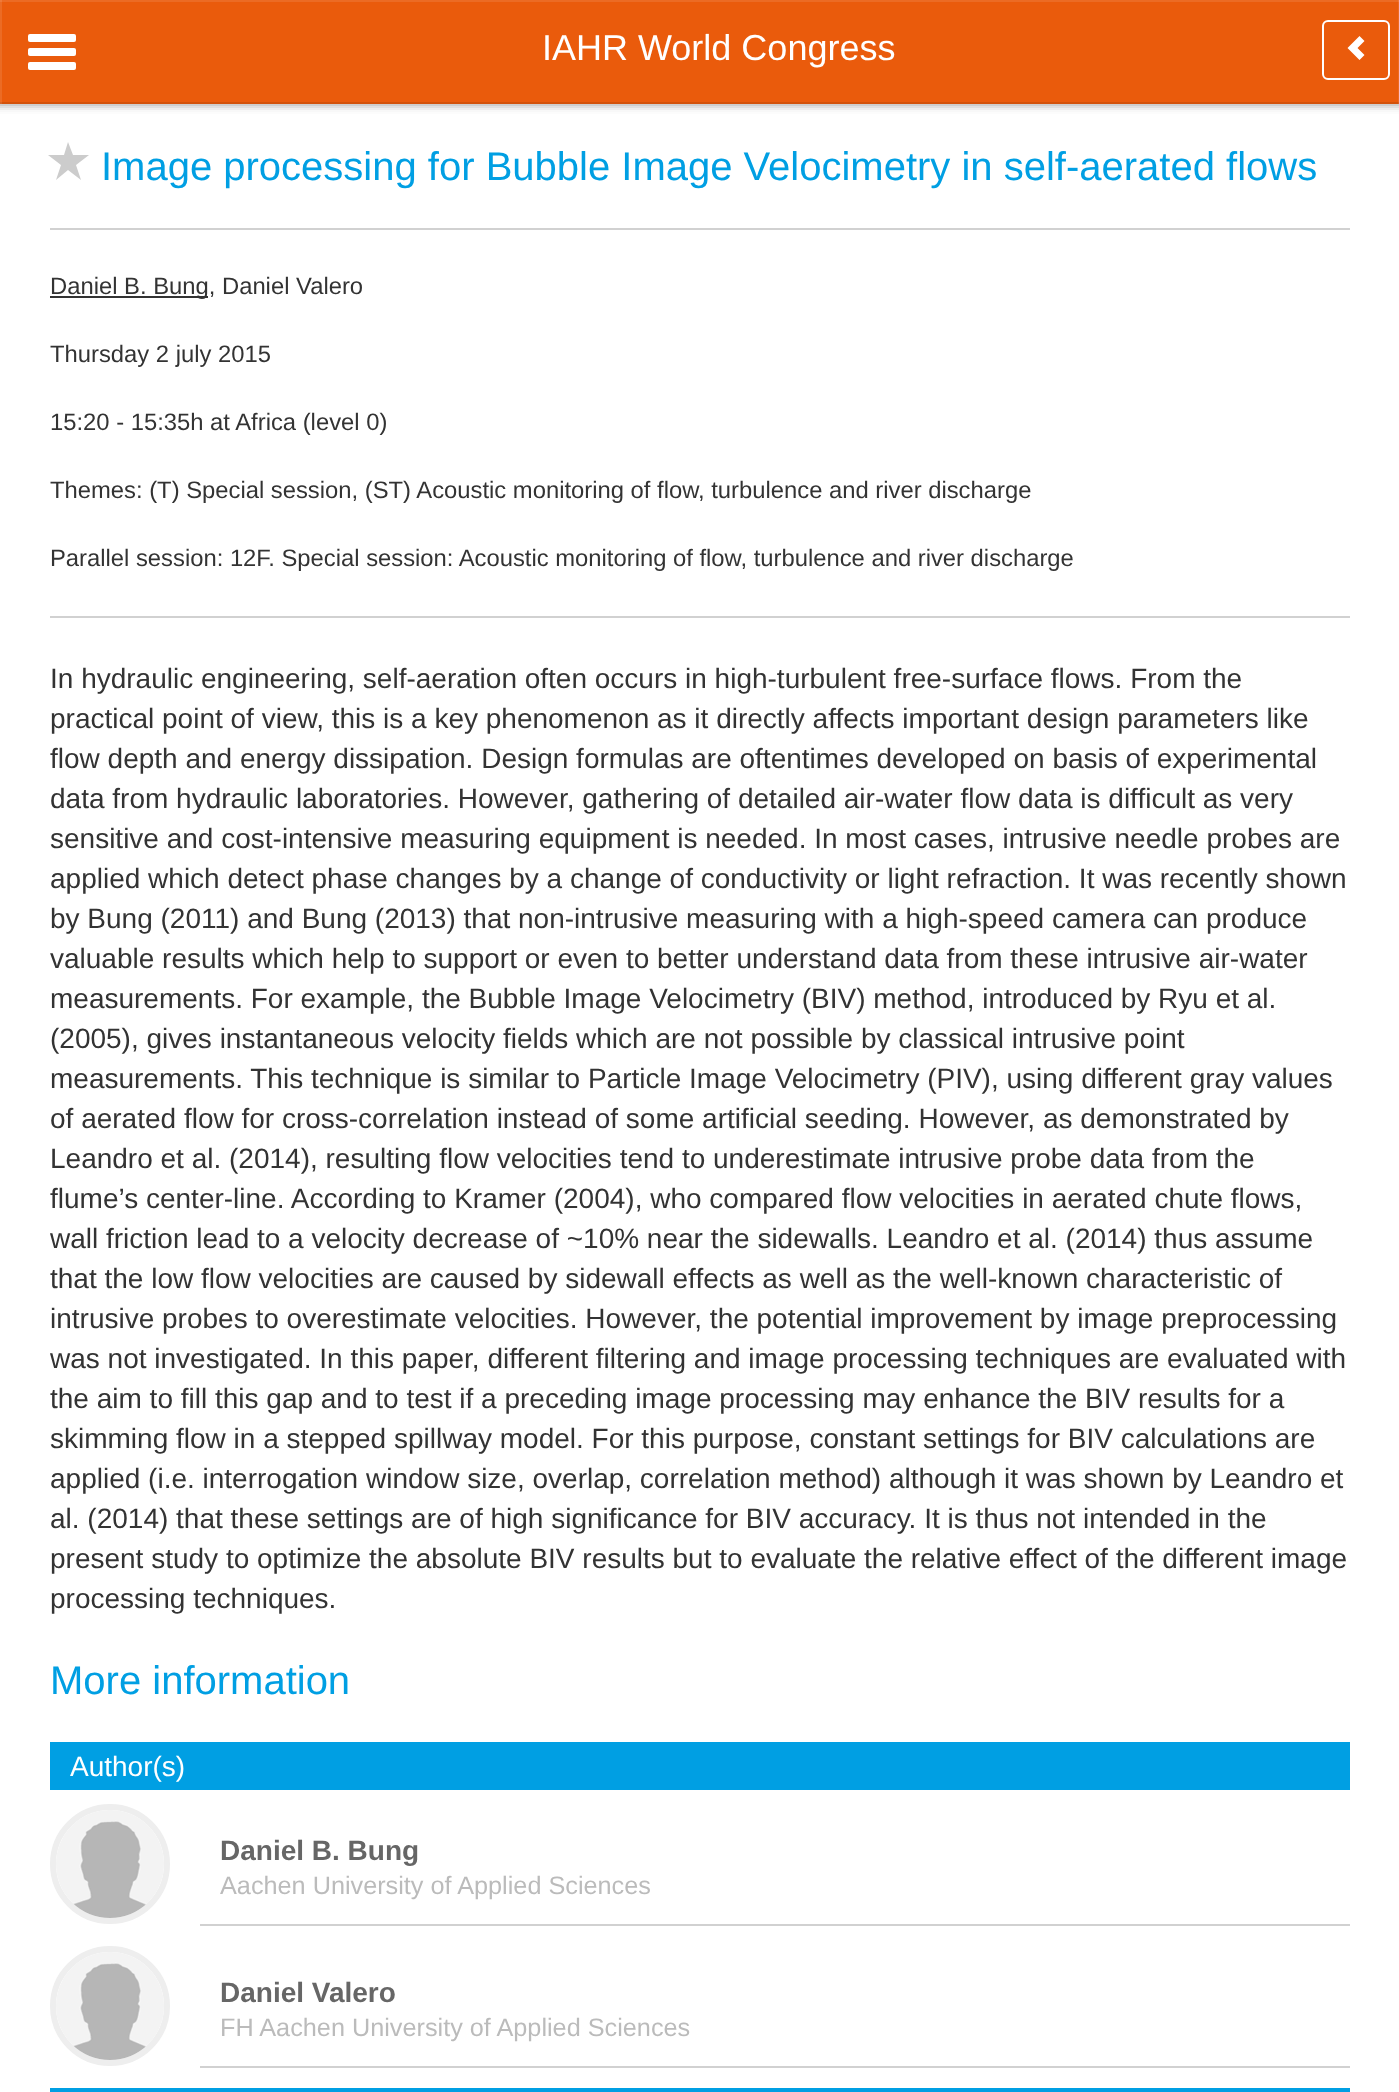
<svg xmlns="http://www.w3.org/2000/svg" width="1399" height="2092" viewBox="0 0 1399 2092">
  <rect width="100%" height="100%" fill="#ffffff"/>
  <rect x="0" y="112" width="1399" height="2" fill="#fcfcfc"/>
  <rect x="0" y="110" width="1399" height="2" fill="#f8f8f8"/>
  <rect x="0" y="108" width="1399" height="2" fill="#eeeeee"/>
  <rect x="0" y="106" width="1399" height="2" fill="#dfdfdf"/>
  <rect x="0" y="104" width="1399" height="2" fill="#cecece"/>
  <rect x="2" y="2" width="1396" height="100" fill="#ea5b0c"/>
  <rect x="0" y="0" width="1399" height="2" fill="#ec6b24"/>
  <rect x="0" y="0" width="2" height="104" fill="#ec6b24"/>
  <rect x="0" y="0" width="2" height="2" fill="#ee7a3a"/>
  <rect x="1398" y="0" width="1" height="104" fill="#ec6b24"/>
  <rect x="1398" y="0" width="1" height="2" fill="#ee7a3a"/>
  <rect x="0" y="102" width="1399" height="2" fill="#d3520b"/>
  <rect x="0" y="102" width="2" height="2" fill="#d76323"/>
  <rect x="1398" y="102" width="1" height="2" fill="#d76323"/>
  <rect x="28" y="34" width="48" height="8" rx="2" fill="#ffffff"/>
  <rect x="28" y="48" width="48" height="8" rx="2" fill="#ffffff"/>
  <rect x="28" y="62" width="48" height="8" rx="2" fill="#ffffff"/>
  <text x="542" y="60" font-family="Liberation Sans" font-size="36" fill="#ffffff">IAHR World Congress</text>
  <rect x="1323" y="21" width="66" height="58" rx="5" fill="none" stroke="#ffffff" stroke-width="2"/>
  <path d="M1347.5 48L1359.5 60L1364.5 55L1357.5 48L1364.5 41L1359.5 36Z" fill="#ffffff"/>
  <path d="M48 155H64L68 142L73 155H89L76 165L81 180L68 170L56 180L61 165ZM56 180H56Z" fill="#cccccc"/>
  <text x="101" y="180" font-family="Liberation Sans" font-size="40" fill="#009fe3">Image processing for Bubble Image Velocimetry in self-aerated flows</text>
  <rect x="50" y="228" width="1300" height="2" fill="#d1d1d1"/>
  <rect x="50" y="296" width="158" height="2" fill="#333333"/>
  <text x="50" y="294" font-family="Liberation Sans" font-size="23.8" fill="#333333">Daniel B. Bung, Daniel Valero</text>
  <text x="50" y="362" font-family="Liberation Sans" font-size="23.8" fill="#333333">Thursday 2 july 2015</text>
  <text x="50" y="430" font-family="Liberation Sans" font-size="23.8" fill="#333333">15:20 - 15:35h at Africa (level 0)</text>
  <text x="50" y="498" font-family="Liberation Sans" font-size="23.8" fill="#333333">Themes: (T) Special session, (ST) Acoustic monitoring of flow, turbulence and river discharge</text>
  <text x="50" y="566" font-family="Liberation Sans" font-size="23.8" fill="#333333">Parallel session: 12F. Special session: Acoustic monitoring of flow, turbulence and river discharge</text>
  <rect x="50" y="616" width="1300" height="2" fill="#d1d1d1"/>
  <text x="50" y="688" font-family="Liberation Sans" font-size="28" fill="#333333">In hydraulic engineering, self-aeration often occurs in high-turbulent free-surface flows. From the</text>
  <text x="50" y="728" font-family="Liberation Sans" font-size="28" fill="#333333">practical point of view, this is a key phenomenon as it directly affects important design parameters like</text>
  <text x="50" y="768" font-family="Liberation Sans" font-size="28" fill="#333333">flow depth and energy dissipation. Design formulas are oftentimes developed on basis of experimental</text>
  <text x="50" y="808" font-family="Liberation Sans" font-size="28" fill="#333333">data from hydraulic laboratories. However, gathering of detailed air-water flow data is difficult as very</text>
  <text x="50" y="848" font-family="Liberation Sans" font-size="28" fill="#333333">sensitive and cost-intensive measuring equipment is needed. In most cases, intrusive needle probes are</text>
  <text x="50" y="888" font-family="Liberation Sans" font-size="28" fill="#333333">applied which detect phase changes by a change of conductivity or light refraction. It was recently shown</text>
  <text x="50" y="928" font-family="Liberation Sans" font-size="28" fill="#333333">by Bung (2011) and Bung (2013) that non-intrusive measuring with a high-speed camera can produce</text>
  <text x="50" y="968" font-family="Liberation Sans" font-size="28" fill="#333333">valuable results which help to support or even to better understand data from these intrusive air-water</text>
  <text x="50" y="1008" font-family="Liberation Sans" font-size="28" fill="#333333">measurements. For example, the Bubble Image Velocimetry (BIV) method, introduced by Ryu et al.</text>
  <text x="50" y="1048" font-family="Liberation Sans" font-size="28" fill="#333333">(2005), gives instantaneous velocity fields which are not possible by classical intrusive point</text>
  <text x="50" y="1088" font-family="Liberation Sans" font-size="28" fill="#333333">measurements. This technique is similar to Particle Image Velocimetry (PIV), using different gray values</text>
  <text x="50" y="1128" font-family="Liberation Sans" font-size="28" fill="#333333">of aerated flow for cross-correlation instead of some artificial seeding. However, as demonstrated by</text>
  <text x="50" y="1168" font-family="Liberation Sans" font-size="28" fill="#333333">Leandro et al. (2014), resulting flow velocities tend to underestimate intrusive probe data from the</text>
  <text x="50" y="1208" font-family="Liberation Sans" font-size="28" fill="#333333">flume’s center-line. According to Kramer (2004), who compared flow velocities in aerated chute flows,</text>
  <text x="50" y="1248" font-family="Liberation Sans" font-size="28" fill="#333333">wall friction lead to a velocity decrease of ~10% near the sidewalls. Leandro et al. (2014) thus assume</text>
  <text x="50" y="1288" font-family="Liberation Sans" font-size="28" fill="#333333">that the low flow velocities are caused by sidewall effects as well as the well-known characteristic of</text>
  <text x="50" y="1328" font-family="Liberation Sans" font-size="28" fill="#333333">intrusive probes to overestimate velocities. However, the potential improvement by image preprocessing</text>
  <text x="50" y="1368" font-family="Liberation Sans" font-size="28" fill="#333333">was not investigated. In this paper, different filtering and image processing techniques are evaluated with</text>
  <text x="50" y="1408" font-family="Liberation Sans" font-size="28" fill="#333333">the aim to fill this gap and to test if a preceding image processing may enhance the BIV results for a</text>
  <text x="50" y="1448" font-family="Liberation Sans" font-size="28" fill="#333333">skimming flow in a stepped spillway model. For this purpose, constant settings for BIV calculations are</text>
  <text x="50" y="1488" font-family="Liberation Sans" font-size="28" fill="#333333">applied (i.e. interrogation window size, overlap, correlation method) although it was shown by Leandro et</text>
  <text x="50" y="1528" font-family="Liberation Sans" font-size="28" fill="#333333">al. (2014) that these settings are of high significance for BIV accuracy. It is thus not intended in the</text>
  <text x="50" y="1568" font-family="Liberation Sans" font-size="28" fill="#333333">present study to optimize the absolute BIV results but to evaluate the relative effect of the different image</text>
  <text x="50" y="1608" font-family="Liberation Sans" font-size="28" fill="#333333">processing techniques.</text>
  <text x="50" y="1694" font-family="Liberation Sans" font-size="40" fill="#009fe3">More information</text>
  <rect x="50" y="1742" width="1300" height="48" fill="#009fe3"/>
  <text x="70" y="1776" font-family="Liberation Sans" font-size="28" fill="#ffffff">Author(s)</text>
  <circle cx="110" cy="1864" r="57" fill="none" stroke="#eeeeee" stroke-width="6"/>
  <image x="56" y="1810" width="108" height="108" href="img1.png"/>
  <text x="220" y="1860" font-family="Liberation Sans" font-size="28" font-weight="bold" fill="#666666">Daniel B. Bung</text>
  <text x="220" y="1894" font-family="Liberation Sans" font-size="25.25" fill="#bbbbbb">Aachen University of Applied Sciences</text>
  <rect x="200" y="1924" width="1150" height="2" fill="#d1d1d1"/>
  <circle cx="110" cy="2006" r="57" fill="none" stroke="#eeeeee" stroke-width="6"/>
  <image x="56" y="1952" width="108" height="108" href="img1.png"/>
  <text x="220" y="2002" font-family="Liberation Sans" font-size="28" font-weight="bold" fill="#666666">Daniel Valero</text>
  <text x="220" y="2036" font-family="Liberation Sans" font-size="25.25" fill="#bbbbbb">FH Aachen University of Applied Sciences</text>
  <rect x="200" y="2066" width="1150" height="2" fill="#d1d1d1"/>
  <rect x="50" y="2088" width="1300" height="4" fill="#009fe3"/>
</svg>
